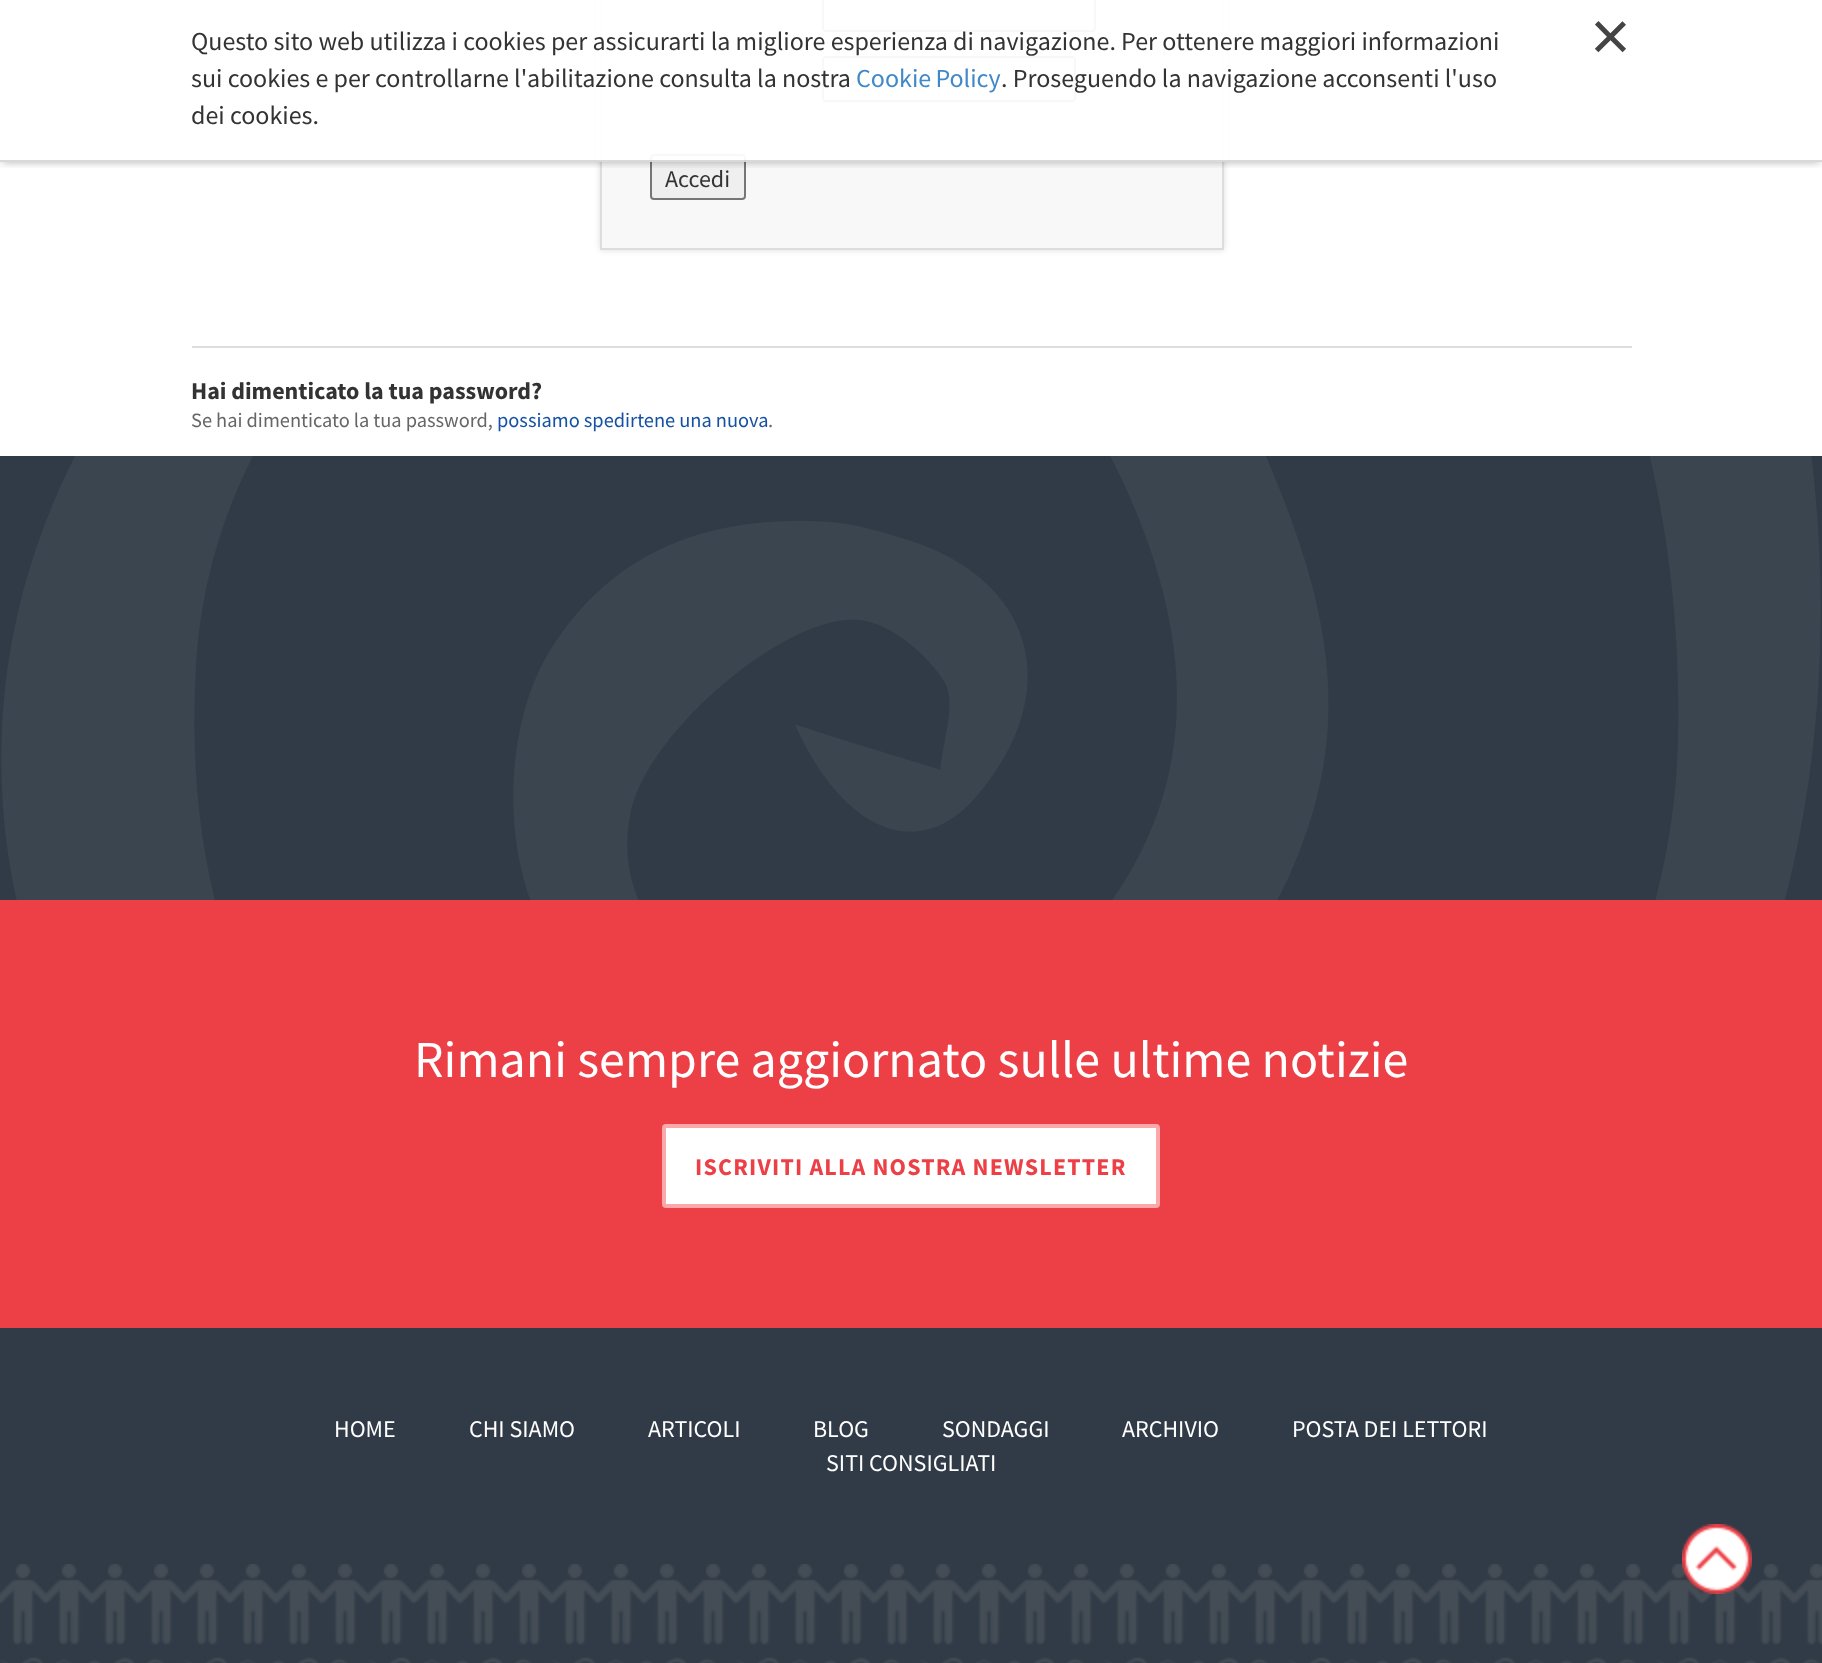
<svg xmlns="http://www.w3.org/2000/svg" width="1822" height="1663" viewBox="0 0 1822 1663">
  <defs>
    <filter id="blur1" x="-50%" y="-200%" width="200%" height="500%"><feGaussianBlur stdDeviation="3"/></filter>
    <clipPath id="clip1"><rect x="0" y="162" width="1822" height="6"/></clipPath>
    <filter id="blur2" x="-50%" y="-200%" width="200%" height="500%"><feGaussianBlur stdDeviation="4"/></filter>
  </defs>
  <rect width="100%" height="100%" fill="#ffffff"/>
  <rect x="600" y="-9" width="624" height="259" fill="#dddddd" filter="url(#blur1)"/>
  <rect x="601" y="-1" width="622" height="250" fill="#f8f8f8" stroke="#dddddd" stroke-width="2"/>
  <rect x="823" y="-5" width="272" height="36" rx="3" fill="#ffffff" stroke="#767676" stroke-width="2"/>
  <rect x="823" y="57" width="252" height="44" rx="3" fill="#ffffff" stroke="#767676" stroke-width="2"/>
  <rect x="651" y="155" width="94" height="44" rx="3" fill="#efefef" stroke="#767676" stroke-width="2"/>
  <g clip-path="url(#clip1)">
    <rect x="2" y="4" width="1818" height="158" fill="#000000" fill-opacity="0.3" filter="url(#blur2)"/>
  </g>
  <rect x="596" y="0" width="632" height="162" fill="#ffffff" fill-opacity="0.95"/>
  <rect x="0" y="160" width="1822" height="2" fill="#000000" fill-opacity="0.15"/>
  <text x="191" y="50" font-family="Source Sans Pro" font-size="26" fill="#333333">Questo sito web utilizza i cookies per assicurarti la migliore esperienza di navigazione. Per ottenere maggiori informazioni</text>
  <text x="191" y="87" font-family="Source Sans Pro" font-size="26" fill="#333333">sui cookies e per controllarne l'abilitazione consulta la nostra</text>
  <text x="856" y="87" word-spacing="-1" font-family="Source Sans Pro" font-size="26" fill="#4088c9">Cookie Policy</text>
  <text x="1001" y="87" font-family="Source Sans Pro" font-size="26" fill="#333333">. Proseguendo la navigazione acconsenti l'uso</text>
  <text x="191" y="124" font-family="Source Sans Pro" font-size="26" fill="#333333">dei cookies.</text>
  <text x="1590" y="60" font-family="Liberation Sans" font-size="70" fill="#444444">×</text>
  <text x="665" y="187" font-family="Source Sans Pro" font-size="24" fill="#333333">Accedi</text>
  <rect x="192" y="346" width="1440" height="2" fill="#dddddd"/>
  <text x="191" y="399" font-family="Source Sans Pro" font-size="24" font-weight="bold" fill="#333333">Hai dimenticato la tua password?</text>
  <text x="191" y="427" font-family="Source Sans Pro" font-size="20.4" fill="#666666">Se hai dimenticato la tua password,</text>
  <text x="497" y="427" font-family="Source Sans Pro" font-size="20.4" fill="#1451a2">possiamo spedirtene una nuova</text>
  <text x="768" y="427" font-family="Source Sans Pro" font-size="20.4" fill="#666666">.</text>
  <rect x="0" y="456" width="1822" height="444" fill="#303b47"/>
  <image x="1" y="456" width="1820" height="444" href="img1.png"/>
  <rect x="0" y="1328" width="1822" height="335" fill="#303b47"/>
  <rect x="0" y="900" width="1822" height="428" fill="#ed3f46"/>
  <text x="414" y="1077" font-family="Source Sans Pro" font-size="52" fill="#ffffff">Rimani sempre aggiornato sulle ultime notizie</text>
  <rect x="664" y="1126" width="494" height="80" rx="2" fill="#ffffff" stroke="#fba8ab" stroke-width="4"/>
  <text x="695" y="1175" font-family="Source Sans Pro" font-size="24" font-weight="bold" letter-spacing="1.2" fill="#ed3f46">ISCRIVITI ALLA NOSTRA NEWSLETTER</text>
  <text x="334" y="1437" font-family="Source Sans Pro" font-size="24" fill="#ffffff">HOME</text>
  <text x="469" y="1437" font-family="Source Sans Pro" font-size="24" fill="#ffffff">CHI SIAMO</text>
  <text x="648" y="1437" font-family="Source Sans Pro" font-size="24" fill="#ffffff">ARTICOLI</text>
  <text x="813" y="1437" font-family="Source Sans Pro" font-size="24" fill="#ffffff">BLOG</text>
  <text x="942" y="1437" font-family="Source Sans Pro" font-size="24" fill="#ffffff">SONDAGGI</text>
  <text x="1122" y="1437" font-family="Source Sans Pro" font-size="24" fill="#ffffff">ARCHIVIO</text>
  <text x="1292" y="1437" font-family="Source Sans Pro" font-size="24" fill="#ffffff">POSTA DEI LETTORI</text>
  <text x="826" y="1471" font-family="Source Sans Pro" font-size="24" fill="#ffffff">SITI CONSIGLIATI</text>
  <image x="0" y="1564" width="1822" height="99" href="img3.png"/>
  <image x="1682" y="1524" width="70" height="70" href="img2.png"/>
</svg>
